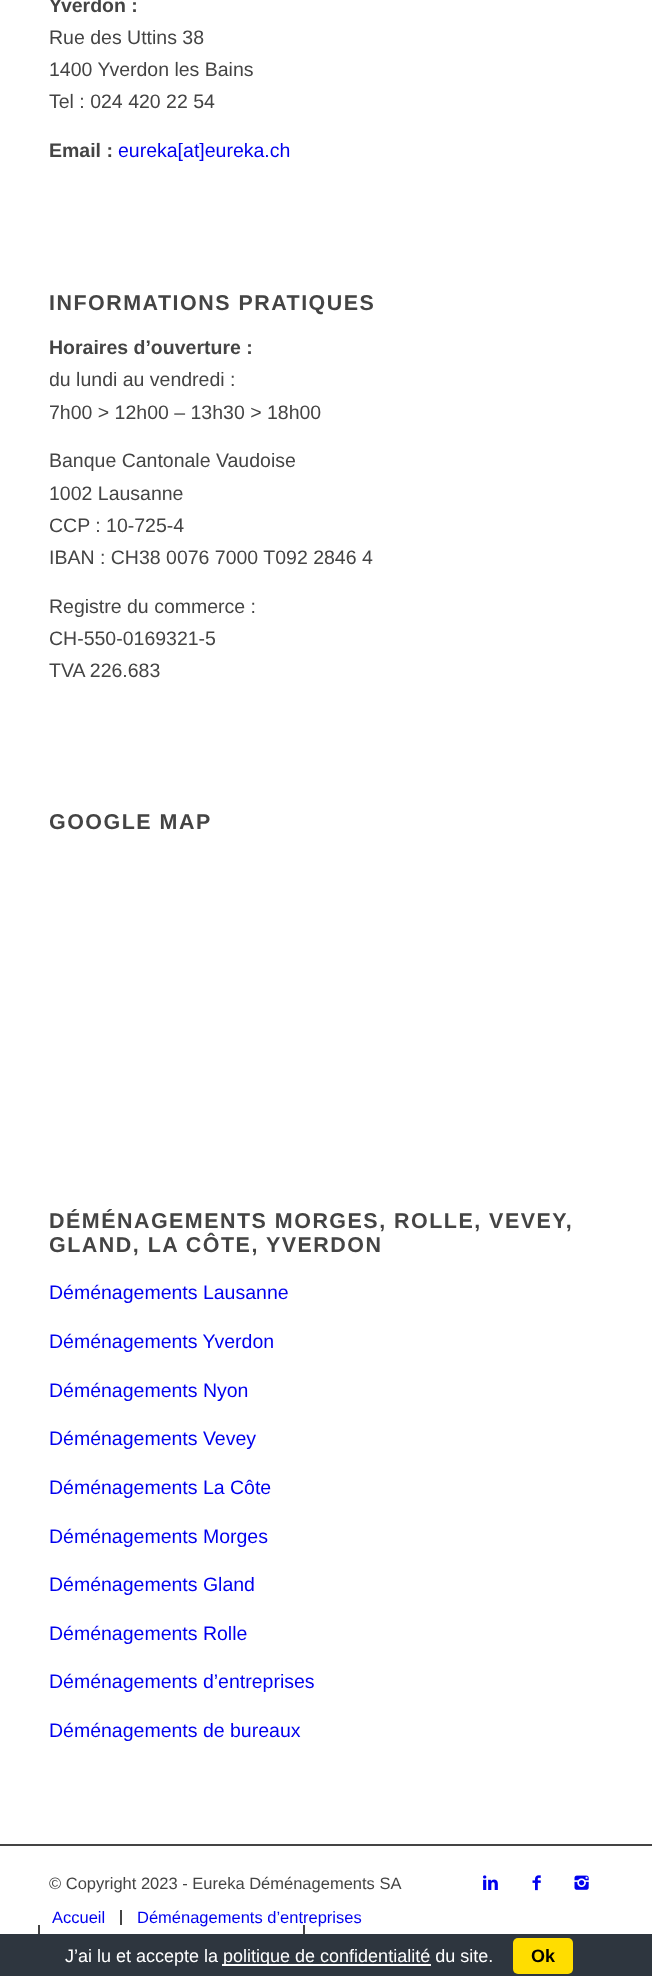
<svg xmlns="http://www.w3.org/2000/svg" width="652" height="1976" viewBox="0 0 652 1976">
  <defs>
    <clipPath id="clip1"><rect x="50" y="273" width="553" height="431"/></clipPath>
    <clipPath id="clip2"><rect x="50" y="794" width="553" height="354"/></clipPath>
    <clipPath id="clip3"><rect x="50" y="1193" width="553" height="562"/></clipPath>
  </defs>
  <rect width="100%" height="100%" fill="#ffffff"/>
  <text x="49" y="12" font-family="Liberation Sans" font-size="19.5" font-weight="bold" fill="#444444">Yverdon :</text>
  <text x="49" y="44" font-family="Liberation Sans" font-size="19.5" fill="#444444">Rue des Uttins 38</text>
  <text x="49" y="76" font-family="Liberation Sans" font-size="19.5" fill="#444444">1400 Yverdon les Bains</text>
  <text x="49" y="108" font-family="Liberation Sans" font-size="19.5" fill="#444444">Tel : 024 420 22 54</text>
  <text x="49" y="157" font-family="Liberation Sans" font-size="19.5" font-weight="bold" fill="#444444">Email :</text>
  <text x="118" y="157" font-family="Liberation Sans" font-size="19.5" fill="#0000ee">eureka[at]eureka.ch</text>
  <text x="49" y="310" font-family="Liberation Sans" font-size="21.45" font-weight="bold" letter-spacing="1.5" fill="#444444">INFORMATIONS PRATIQUES</text>
  <text x="49" y="354" font-family="Liberation Sans" font-size="19.5" font-weight="bold" fill="#444444">Horaires d’ouverture :</text>
  <g clip-path="url(#clip1)">
    <text x="49" y="386" font-family="Liberation Sans" font-size="19.5" fill="#444444">du lundi au vendredi :</text>
  </g>
  <text x="49" y="419" font-family="Liberation Sans" font-size="19.5" fill="#444444">7h00 &gt; 12h00 – 13h30 &gt; 18h00</text>
  <text x="49" y="467" font-family="Liberation Sans" font-size="19.5" fill="#444444">Banque Cantonale Vaudoise</text>
  <text x="49" y="500" font-family="Liberation Sans" font-size="19.5" fill="#444444">1002 Lausanne</text>
  <text x="49" y="532" font-family="Liberation Sans" font-size="19.5" fill="#444444">CCP : 10-725-4</text>
  <text x="49" y="564" font-family="Liberation Sans" font-size="19.5" fill="#444444">IBAN : CH38 0076 7000 T092 2846 4</text>
  <text x="49" y="613" font-family="Liberation Sans" font-size="19.5" fill="#444444">Registre du commerce :</text>
  <text x="49" y="645" font-family="Liberation Sans" font-size="19.5" fill="#444444">CH-550-0169321-5</text>
  <text x="49" y="677" font-family="Liberation Sans" font-size="19.5" fill="#444444">TVA 226.683</text>
  <g clip-path="url(#clip2)">
    <text x="49" y="829" font-family="Liberation Sans" font-size="21.45" font-weight="bold" letter-spacing="1.5" fill="#444444">GOOGLE MAP</text>
  </g>
  <text x="49" y="1228" font-family="Liberation Sans" font-size="21.45" font-weight="bold" letter-spacing="1.5" fill="#444444">DÉMÉNAGEMENTS MORGES, ROLLE, VEVEY,</text>
  <g clip-path="url(#clip3)">
    <text x="49" y="1252" font-family="Liberation Sans" font-size="21.45" font-weight="bold" letter-spacing="1.5" fill="#444444">GLAND, LA CÔTE, YVERDON</text>
  </g>
  <text x="49" y="1299" font-family="Liberation Sans" font-size="19.5" fill="#0000ee">Déménagements Lausanne</text>
  <text x="49" y="1348" font-family="Liberation Sans" font-size="19.5" fill="#0000ee">Déménagements Yverdon</text>
  <text x="49" y="1397" font-family="Liberation Sans" font-size="19.5" fill="#0000ee">Déménagements Nyon</text>
  <text x="49" y="1445" font-family="Liberation Sans" font-size="19.5" fill="#0000ee">Déménagements Vevey</text>
  <text x="49" y="1494" font-family="Liberation Sans" font-size="19.5" fill="#0000ee">Déménagements La Côte</text>
  <text x="49" y="1543" font-family="Liberation Sans" font-size="19.5" fill="#0000ee">Déménagements Morges</text>
  <text x="49" y="1591" font-family="Liberation Sans" font-size="19.5" fill="#0000ee">Déménagements Gland</text>
  <text x="49" y="1640" font-family="Liberation Sans" font-size="19.5" fill="#0000ee">Déménagements Rolle</text>
  <text x="49" y="1688" font-family="Liberation Sans" font-size="19.5" fill="#0000ee">Déménagements d’entreprises</text>
  <text x="49" y="1737" font-family="Liberation Sans" font-size="19.5" fill="#0000ee">Déménagements de bureaux</text>
  <rect x="0" y="1844" width="652" height="2" fill="#444444"/>
  <text x="49" y="1889" font-family="Liberation Sans" font-size="16.5" fill="#444444">© Copyright 2023 - Eureka Déménagements SA</text>
  <image x="483" y="1875" width="15" height="15" href="img1.png"/>
  <image x="532" y="1875" width="9" height="16" href="img2.png"/>
  <image x="574" y="1875" width="15" height="15" href="img3.png"/>
  <text x="52" y="1923" font-family="Liberation Sans" font-size="16.5" fill="#0000ee">Accueil</text>
  <rect x="120" y="1910" width="2" height="15" fill="#444444"/>
  <text x="137" y="1923" font-family="Liberation Sans" font-size="16.5" fill="#0000ee">Déménagements d’entreprises</text>
  <rect x="38" y="1925" width="2" height="15" fill="#444444"/>
  <rect x="303" y="1925" width="2" height="15" fill="#444444"/>
  <rect x="0" y="1934" width="652" height="42" fill="#2e363f"/>
  <text x="65" y="1962" font-family="Liberation Sans" font-size="18" fill="#ffffff">J’ai lu et accepte la</text>
  <rect x="222" y="1964" width="209" height="2" fill="#ffffff"/>
  <text x="223" y="1962" font-family="Liberation Sans" font-size="18" fill="#ffffff">politique de confidentialité du site.</text>
  <rect x="513" y="1938" width="60" height="36" rx="5" fill="#ffdd00"/>
  <text x="531" y="1962" font-family="Liberation Sans" font-size="18" font-weight="bold" fill="#000000">Ok</text>
</svg>
